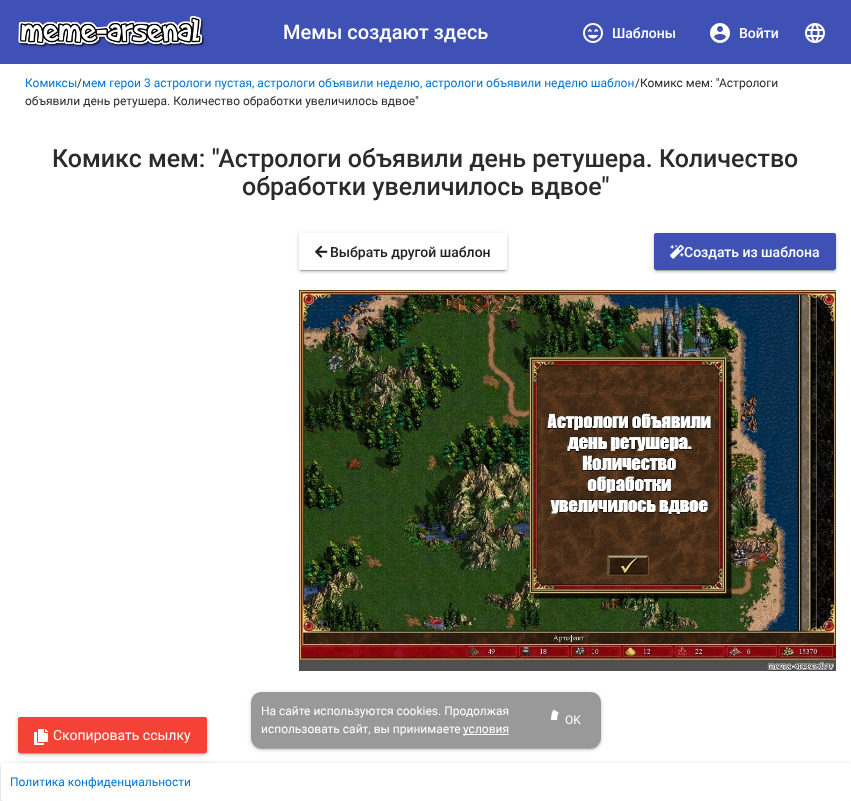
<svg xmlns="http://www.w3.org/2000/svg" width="851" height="801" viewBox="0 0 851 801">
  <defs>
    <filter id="blur1" x="-50%" y="-200%" width="200%" height="500%"><feGaussianBlur stdDeviation="2.5"/></filter>
    <filter id="blur2" x="-50%" y="-200%" width="200%" height="500%"><feGaussianBlur stdDeviation="1"/></filter>
    <filter id="blur3" x="-50%" y="-200%" width="200%" height="500%"><feGaussianBlur stdDeviation="0.5"/></filter>
  </defs>
  <rect width="100%" height="100%" fill="#ffffff"/>
  <rect x="0" y="0" width="851" height="64" fill="#3f51b5"/>
  <image x="18" y="16" width="187" height="32" href="img1.png"/>
  <text x="283" y="39" font-family="Roboto" font-size="20" font-weight="500" fill="#ffffff">Мемы создают здесь</text>
  <image x="583" y="23" width="20" height="20" href="img2.png"/>
  <text x="612" y="38" font-family="Roboto" font-size="14" font-weight="500" fill="#ffffff">Шаблоны</text>
  <image x="710" y="23" width="20" height="20" href="img3.png"/>
  <text x="739" y="38" font-family="Roboto" font-size="14" font-weight="500" fill="#ffffff">Войти</text>
  <image x="805" y="23" width="20" height="20" href="img4.png"/>
  <text x="25" y="87" font-family="Roboto" font-size="12" fill="#0275d8">Комиксы</text>
  <text x="77" y="87" font-family="Roboto" font-size="12" fill="#292b2c">/</text>
  <text x="82" y="87" font-family="Roboto" font-size="12" fill="#0275d8">мем герои 3 астрологи пустая, астрологи объявили неделю, астрологи объявили неделю шаблон</text>
  <text x="635" y="87" font-family="Roboto" font-size="12" fill="#292b2c">/Комикс мем: "Астрологи</text>
  <text x="25" y="105" font-family="Roboto" font-size="12" fill="#292b2c">объявили день ретушера. Количество обработки увеличилось вдвое"</text>
  <text x="52" y="167" font-family="Roboto" font-size="25" font-weight="500" fill="#292b2c">Комикс мем: "Астрологи объявили день ретушера. Количество</text>
  <text x="242" y="195" font-family="Roboto" font-size="25" font-weight="500" fill="#292b2c">обработки увеличилось вдвое"</text>
  <rect x="299" y="234" width="208" height="37" rx="2" fill="#000000" fill-opacity="0.12" filter="url(#blur1)"/>
  <rect x="299" y="235" width="208" height="37" rx="2" fill="#000000" fill-opacity="0.14" filter="url(#blur2)"/>
  <rect x="301" y="238" width="204" height="33" fill="#000000" fill-opacity="0.2" filter="url(#blur3)"/>
  <rect x="299" y="233" width="208" height="37" rx="2" fill="#ffffff"/>
  <image x="315" y="245" width="13" height="13" href="img5.png"/>
  <text x="330" y="257" font-family="Roboto" font-size="14" font-weight="500" fill="#212121">Выбрать другой шаблон</text>
  <rect x="654" y="234" width="182" height="37" rx="2" fill="#000000" fill-opacity="0.12" filter="url(#blur1)"/>
  <rect x="654" y="235" width="182" height="37" rx="2" fill="#000000" fill-opacity="0.14" filter="url(#blur2)"/>
  <rect x="656" y="238" width="178" height="33" fill="#000000" fill-opacity="0.2" filter="url(#blur3)"/>
  <rect x="654" y="233" width="182" height="37" rx="2" fill="#3f51b5"/>
  <image x="670" y="244" width="14" height="15" href="img6.png"/>
  <text x="684" y="257" font-family="Roboto" font-size="14" font-weight="500" fill="#ffffff">Создать из шаблона</text>
  <image x="299" y="290" width="537" height="381" href="img7.png"/>
  <rect x="18" y="718" width="189" height="36" rx="2" fill="#000000" fill-opacity="0.12" filter="url(#blur1)"/>
  <rect x="18" y="719" width="189" height="36" rx="2" fill="#000000" fill-opacity="0.14" filter="url(#blur2)"/>
  <rect x="20" y="722" width="185" height="32" fill="#000000" fill-opacity="0.2" filter="url(#blur3)"/>
  <rect x="18" y="717" width="189" height="36" rx="2" fill="#f44336"/>
  <image x="34" y="729" width="14" height="16" href="img8.png"/>
  <text x="53" y="740" font-family="Roboto" font-size="14" fill="#ffffff">Скопировать ссылку</text>
  <rect x="18" y="764" width="198" height="36" rx="2" fill="#000000" fill-opacity="0.12" filter="url(#blur1)"/>
  <rect x="251" y="693" width="350" height="56" rx="10" fill="#000000" fill-opacity="0.12" filter="url(#blur1)"/>
  <rect x="251" y="694" width="350" height="56" rx="10" fill="#000000" fill-opacity="0.14" filter="url(#blur2)"/>
  <rect x="253" y="697" width="346" height="52" rx="8" fill="#000000" fill-opacity="0.2" filter="url(#blur3)"/>
  <rect x="251" y="692" width="350" height="56" rx="10" fill="#999999"/>
  <text x="261" y="715" font-family="Roboto" font-size="12" fill="#ffffff">На сайте используются cookies. Продолжая</text>
  <text x="261" y="733" font-family="Roboto" font-size="12" fill="#ffffff">использовать сайт, вы принимаете</text>
  <rect x="463" y="734" width="46" height="1" fill="#ffffff"/>
  <text x="463" y="733" font-family="Roboto" font-size="12" fill="#ffffff">условия</text>
  <path d="M554 720C554 716.5 554.5 713.5 556 711" fill="none" stroke="#ffffff" stroke-width="6.2"/>
  <text x="565" y="724" font-family="Roboto" font-size="12" fill="#ffffff">OK</text>
  <rect x="1" y="764" width="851" height="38" rx="2" fill="#000000" fill-opacity="0.12" filter="url(#blur1)"/>
  <rect x="1" y="765" width="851" height="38" rx="2" fill="#000000" fill-opacity="0.14" filter="url(#blur2)"/>
  <rect x="1" y="763" width="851" height="38" rx="2" fill="#ffffff"/>
  <text x="10" y="786" font-family="Roboto" font-size="12" fill="#0275d8">Политика конфиденциальности</text>
</svg>
